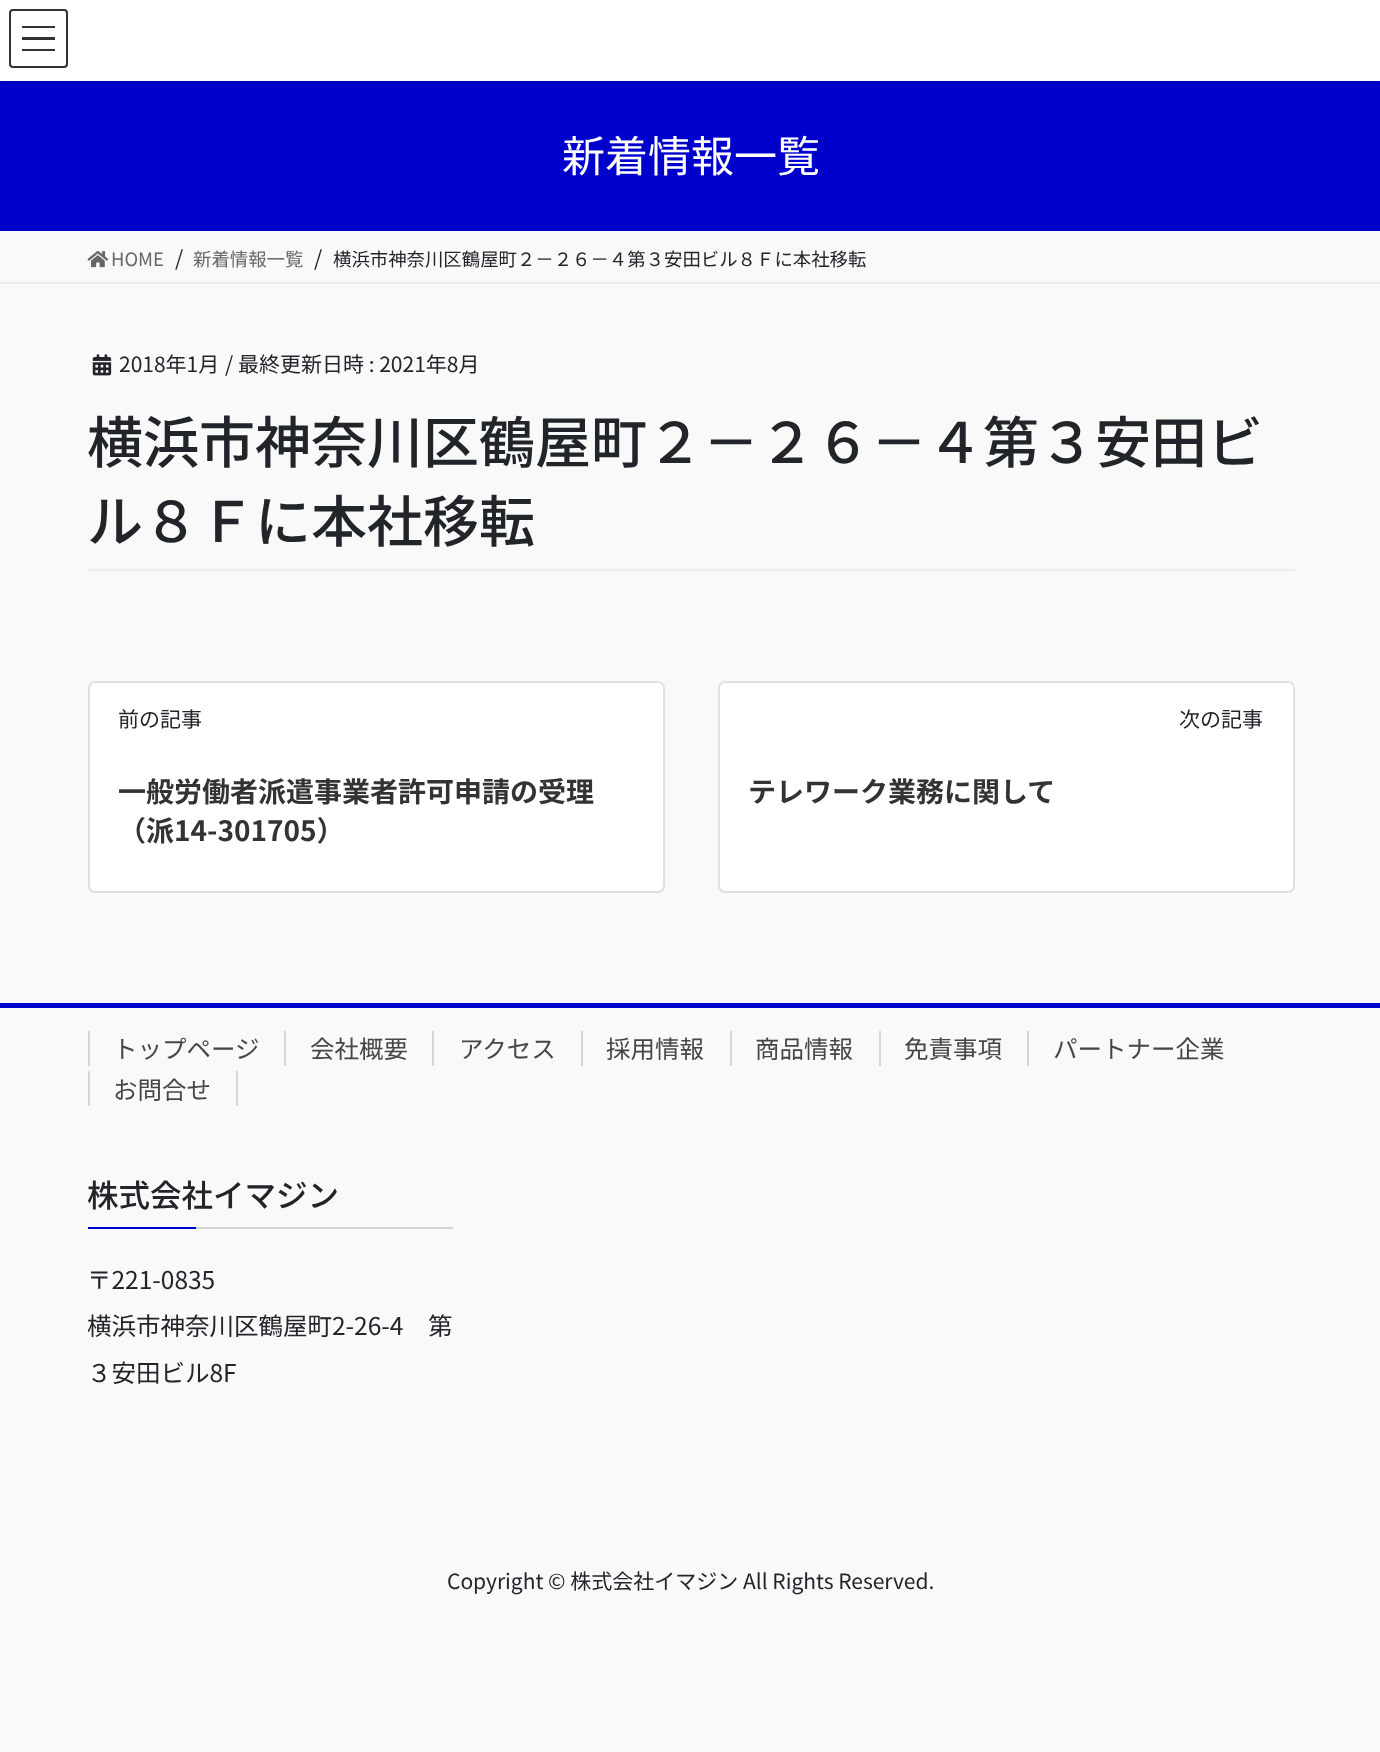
<svg xmlns="http://www.w3.org/2000/svg" width="1380" height="1752" viewBox="0 0 1380 1752">
  <defs>
    <filter id="blur1" x="-50%" y="-200%" width="200%" height="500%"><feGaussianBlur stdDeviation="2.5"/></filter>
    <clipPath id="clip1"><rect x="88" y="1255" width="365" height="164"/></clipPath>
  </defs>
  <rect width="100%" height="100%" fill="#f9f9f9"/>
  <rect x="0" y="81" width="1380" height="150" fill="#0000cc"/>
  <rect x="0" y="2" width="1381" height="80" fill="#000000" fill-opacity="0.1" filter="url(#blur1)"/>
  <rect x="0" y="0" width="1380" height="81" fill="#ffffff"/>
  <rect x="22" y="26" width="33" height="2" fill="#333333"/>
  <rect x="22" y="37" width="33" height="3" fill="#333333"/>
  <rect x="22" y="49" width="33" height="2" fill="#333333"/>
  <rect x="10" y="10" width="57" height="57" rx="3" fill="none" stroke="#333333" stroke-width="2"/>
  <text x="562" y="172" font-family="Noto Sans JP" font-size="43" fill="#ffffff">新着情報一覧</text>
  <rect x="0" y="282" width="1380" height="2" fill="#ededed"/>
  <image x="87" y="251" width="22" height="17" href="img1.png"/>
  <text x="111" y="266" font-family="Noto Sans JP" font-size="18.4" fill="#666666">HOME</text>
  <text x="175" y="266" font-family="Noto Sans JP" font-size="21" fill="#212529">/</text>
  <text x="193" y="266" font-family="Noto Sans JP" font-size="18.4" fill="#666666">新着情報一覧</text>
  <text x="314" y="266" font-family="Noto Sans JP" font-size="21" fill="#212529">/</text>
  <text x="333" y="266" font-family="Noto Sans JP" font-size="18.4" fill="#212529">横浜市神奈川区鶴屋町２－２６－４第３安田ビル８Ｆに本社移転</text>
  <rect x="88" y="569" width="1207" height="2" fill="#ededed"/>
  <image x="92" y="354" width="20" height="22" href="img2.png"/>
  <text x="119" y="372" font-family="Noto Sans JP" font-size="21" fill="#212529">2018年1月</text>
  <text x="225" y="372" font-family="Noto Sans JP" font-size="21" fill="#212529">/ 最終更新日時 : 2021年8月</text>
  <text x="87" y="463" font-family="Noto Sans JP" font-size="56" font-weight="500" fill="#212529">横浜市神奈川区鶴屋町２－２６－４第３安田ビ</text>
  <text x="87" y="542" font-family="Noto Sans JP" font-size="56" font-weight="500" fill="#212529">ル８Ｆに本社移転</text>
  <rect x="88" y="681" width="577" height="212" rx="7" fill="#ffffff"/>
  <rect x="89" y="682" width="575" height="210" rx="6" fill="none" stroke="#000000" stroke-opacity="0.12" stroke-width="2"/>
  <text x="118" y="727" font-family="Noto Sans JP" font-size="21" fill="#212529">前の記事</text>
  <text x="118" y="802" font-family="Noto Sans JP" font-size="28" font-weight="bold" fill="#333333">一般労働者派遣事業者許可申請の受理</text>
  <text x="118" y="841" font-family="Noto Sans JP" font-size="28" font-weight="bold" fill="#333333">（派14-301705）</text>
  <rect x="718" y="681" width="577" height="212" rx="7" fill="#ffffff"/>
  <rect x="719" y="682" width="575" height="210" rx="6" fill="none" stroke="#000000" stroke-opacity="0.12" stroke-width="2"/>
  <text x="1179" y="727" font-family="Noto Sans JP" font-size="21" fill="#212529">次の記事</text>
  <text x="748" y="802" font-family="Noto Sans JP" font-size="28" font-weight="bold" fill="#333333">テレワーク業務に関して</text>
  <rect x="0" y="1003" width="1380" height="5" fill="#0000cc"/>
  <text x="113" y="1058" font-family="Noto Sans JP" font-size="24.5" fill="#464646">トップページ</text>
  <rect x="88" y="1031" width="2" height="35" fill="#d4d4d4"/>
  <text x="310" y="1058" font-family="Noto Sans JP" font-size="24.5" fill="#464646">会社概要</text>
  <rect x="284" y="1031" width="2" height="35" fill="#d4d4d4"/>
  <text x="459" y="1058" font-family="Noto Sans JP" font-size="24.5" fill="#464646">アクセス</text>
  <rect x="432" y="1031" width="2" height="35" fill="#d4d4d4"/>
  <text x="606" y="1058" font-family="Noto Sans JP" font-size="24.5" fill="#464646">採用情報</text>
  <rect x="581" y="1031" width="2" height="35" fill="#d4d4d4"/>
  <text x="755" y="1058" font-family="Noto Sans JP" font-size="24.5" fill="#464646">商品情報</text>
  <rect x="730" y="1031" width="2" height="35" fill="#d4d4d4"/>
  <text x="904" y="1058" font-family="Noto Sans JP" font-size="24.5" fill="#464646">免責事項</text>
  <rect x="879" y="1031" width="2" height="35" fill="#d4d4d4"/>
  <text x="1053" y="1058" font-family="Noto Sans JP" font-size="24.5" fill="#464646">パートナー企業</text>
  <rect x="1027" y="1031" width="2" height="35" fill="#d4d4d4"/>
  <text x="113" y="1099" font-family="Noto Sans JP" font-size="24.5" fill="#464646">お問合せ</text>
  <rect x="236" y="1071" width="2" height="35" fill="#d4d4d4"/>
  <rect x="88" y="1071" width="2" height="35" fill="#d4d4d4"/>
  <rect x="196" y="1227" width="257" height="2" fill="#d4d4d4"/>
  <text x="87" y="1207" font-family="Noto Sans JP" font-size="31.5" font-weight="500" fill="#212529">株式会社イマジン</text>
  <rect x="88" y="1227" width="108" height="2" fill="#0000cc"/>
  <text x="87" y="1289" font-family="Noto Sans JP" font-size="24.5" fill="#212529">〒221-0835</text>
  <g clip-path="url(#clip1)">
    <text x="87" y="1335" font-family="Noto Sans JP" font-size="24.5" fill="#212529">横浜市神奈川区鶴屋町2-26-4　第</text>
  </g>
  <text x="87" y="1382" font-family="Noto Sans JP" font-size="24.5" fill="#212529">３安田ビル8F</text>
  <text x="447" y="1589" font-family="Noto Sans JP" font-size="21" fill="#212529">Copyright © 株式会社イマジン All Rights Reserved.</text>
</svg>
